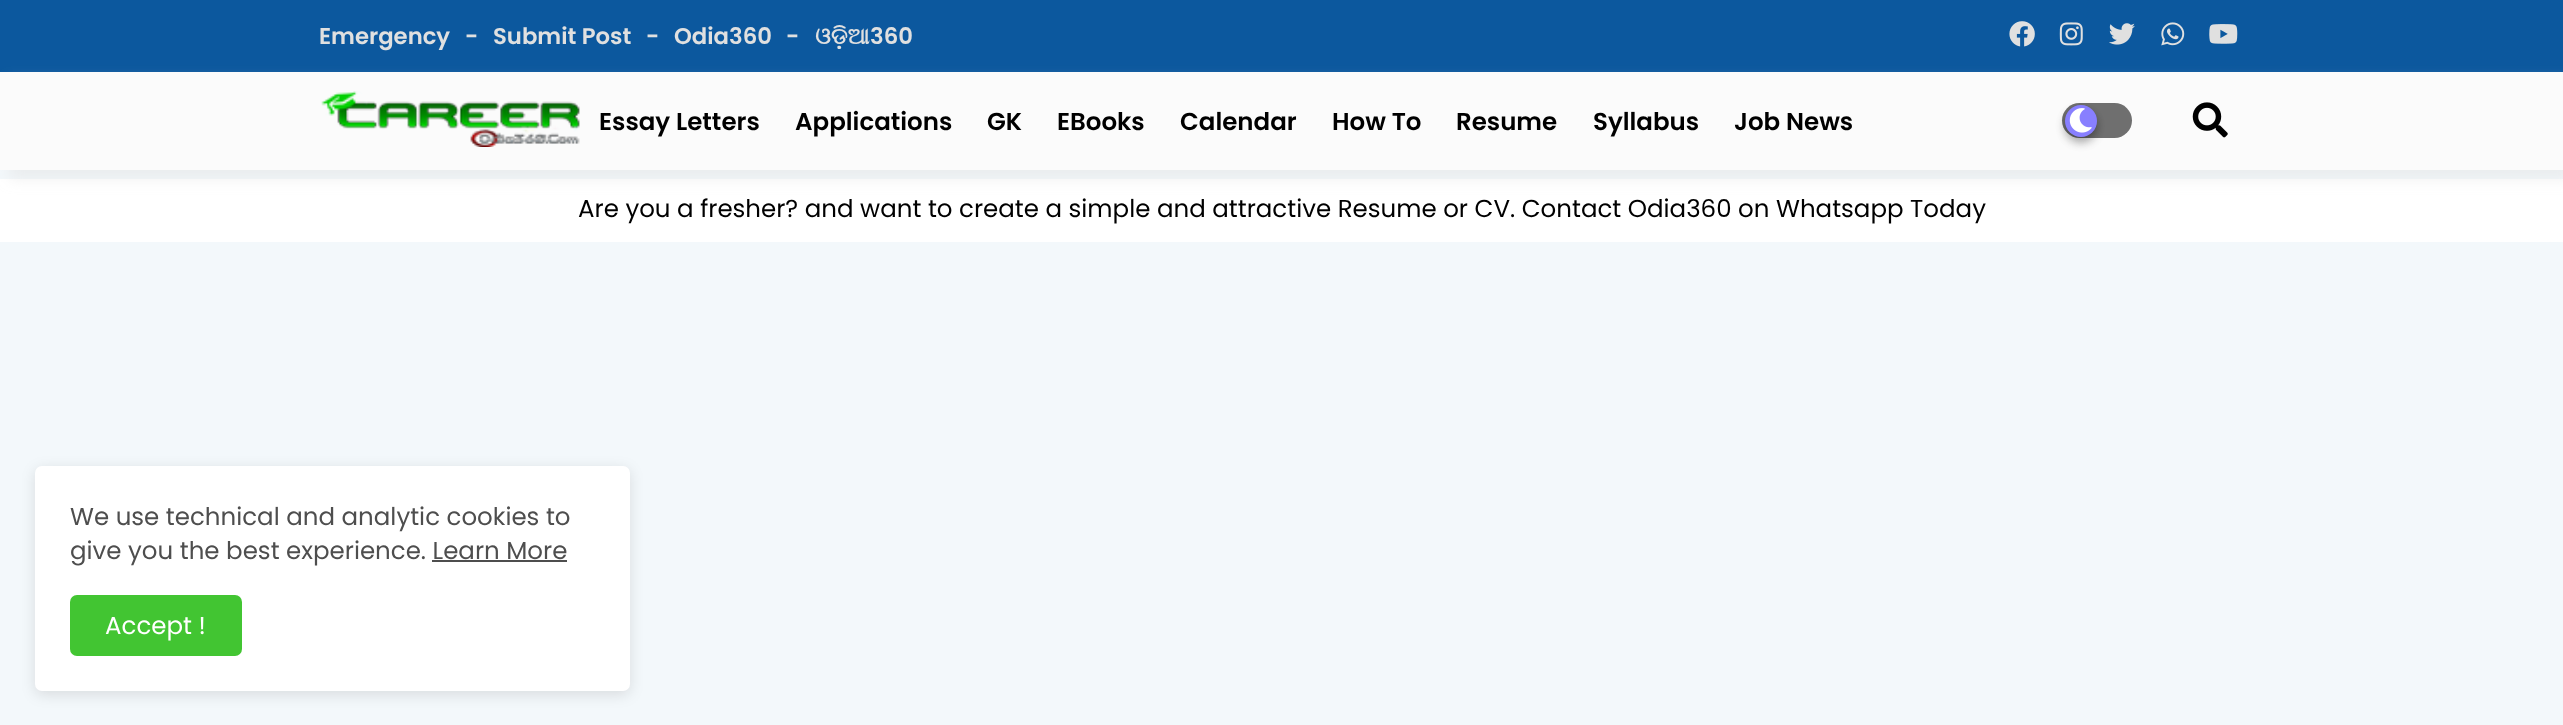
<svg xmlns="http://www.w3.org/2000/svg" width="2563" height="725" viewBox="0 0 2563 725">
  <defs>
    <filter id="blur1" x="-50%" y="-200%" width="200%" height="500%"><feGaussianBlur stdDeviation="7"/></filter>
    <filter id="blur2" x="-50%" y="-200%" width="200%" height="500%"><feGaussianBlur stdDeviation="5"/></filter>
  </defs>
  <rect width="100%" height="100%" fill="#f3f8fb"/>
  <rect x="0" y="0" width="2563" height="72" fill="#0c589e"/>
  <text x="319" y="44" font-family="Poppins" font-size="22.75" font-weight="600" fill="#e0e0e0">Emergency</text>
  <text x="465" y="44" font-family="Poppins" font-size="22.75" font-weight="600" fill="#e0e0e0">-</text>
  <text x="493" y="44" font-family="Poppins" font-size="22.75" font-weight="600" fill="#e0e0e0">Submit Post</text>
  <text x="646" y="44" font-family="Poppins" font-size="22.75" font-weight="600" fill="#e0e0e0">-</text>
  <text x="674" y="44" font-family="Poppins" font-size="22.75" font-weight="600" fill="#e0e0e0">Odia360</text>
  <text x="786" y="44" font-family="Poppins" font-size="22.75" font-weight="600" fill="#e0e0e0">-</text>
  <text x="815" y="44" font-family="FreeSerif" font-size="22.75" font-weight="bold" fill="#e0e0e0">ଓଡ଼ିଆ</text>
  <text x="870" y="44" font-family="Poppins" font-size="22.75" font-weight="600" fill="#e0e0e0">360</text>
  <image x="2009" y="21" width="26" height="26" href="img1.png"/>
  <image x="2059" y="22" width="24" height="24" href="img2.png"/>
  <image x="2109" y="23" width="26" height="22" href="img3.png"/>
  <image x="2161" y="22" width="24" height="24" href="img4.png"/>
  <image x="2209" y="24" width="29" height="20" href="img5.png"/>
  <rect x="0" y="179" width="2563" height="63" fill="#ffffff"/>
  <rect x="9" y="81" width="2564" height="98" fill="#e0dfdf" fill-opacity="0.48" filter="url(#blur1)"/>
  <rect x="0" y="72" width="2563" height="98" fill="#fbfbfb"/>
  <image x="321" y="91" width="259" height="56" href="img6.png"/>
  <text x="599" y="130" font-family="Poppins" font-size="24.5" font-weight="600" fill="#000000">Essay Letters</text>
  <text x="795" y="130" font-family="Poppins" font-size="24.5" font-weight="600" fill="#000000">Applications</text>
  <text x="987" y="130" font-family="Poppins" font-size="24.5" font-weight="600" fill="#000000">GK</text>
  <text x="1057" y="130" font-family="Poppins" font-size="24.5" font-weight="600" fill="#000000">EBooks</text>
  <text x="1180" y="130" font-family="Poppins" font-size="24.5" font-weight="600" fill="#000000">Calendar</text>
  <text x="1332" y="130" font-family="Poppins" font-size="24.5" font-weight="600" fill="#000000">How To</text>
  <text x="1456" y="130" font-family="Poppins" font-size="24.5" font-weight="600" fill="#000000">Resume</text>
  <text x="1593" y="130" font-family="Poppins" font-size="24.5" font-weight="600" fill="#000000">Syllabus</text>
  <text x="1734" y="130" font-family="Poppins" font-size="24.5" font-weight="600" fill="#000000">Job News</text>
  <rect x="2062" y="103" width="70" height="35" rx="17.5" fill="#6f6f6f"/>
  <rect x="2065" y="110" width="32" height="32" rx="16" fill="#000000" fill-opacity="0.23" filter="url(#blur2)"/>
  <rect x="2065" y="110" width="32" height="32" rx="16" fill="#000000" fill-opacity="0.16" filter="url(#blur2)"/>
  <circle cx="2081" cy="121" r="16" fill="#887fff"/>
  <image x="2069" y="108" width="23" height="25" href="img7.png"/>
  <image x="2192" y="102" width="36" height="36" href="img8.png"/>
  <text x="578" y="217" font-family="Poppins" font-size="24.5" fill="#000000">Are you a fresher? and want to create a simple and attractive Resume or CV. Contact Odia360 on Whatsapp Today</text>
  <rect x="35" y="469" width="595" height="226" rx="7" fill="#000000" fill-opacity="0.11" filter="url(#blur1)"/>
  <rect x="35" y="466" width="595" height="225" rx="7" fill="#ffffff"/>
  <text x="70" y="525" font-family="Poppins" font-size="24.5" fill="#4e4e4e">We use technical and analytic cookies to</text>
  <text x="70" y="559" font-family="Poppins" font-size="24.5" fill="#4e4e4e">give you the best experience. Learn More</text>
  <rect x="432" y="560" width="135" height="2" fill="#4e4e4e"/>
  <rect x="70" y="595" width="172" height="61" rx="7" fill="#42c532"/>
  <text x="105" y="634" font-family="Poppins" font-size="24.5" fill="#ffffff">Accept !</text>
</svg>
